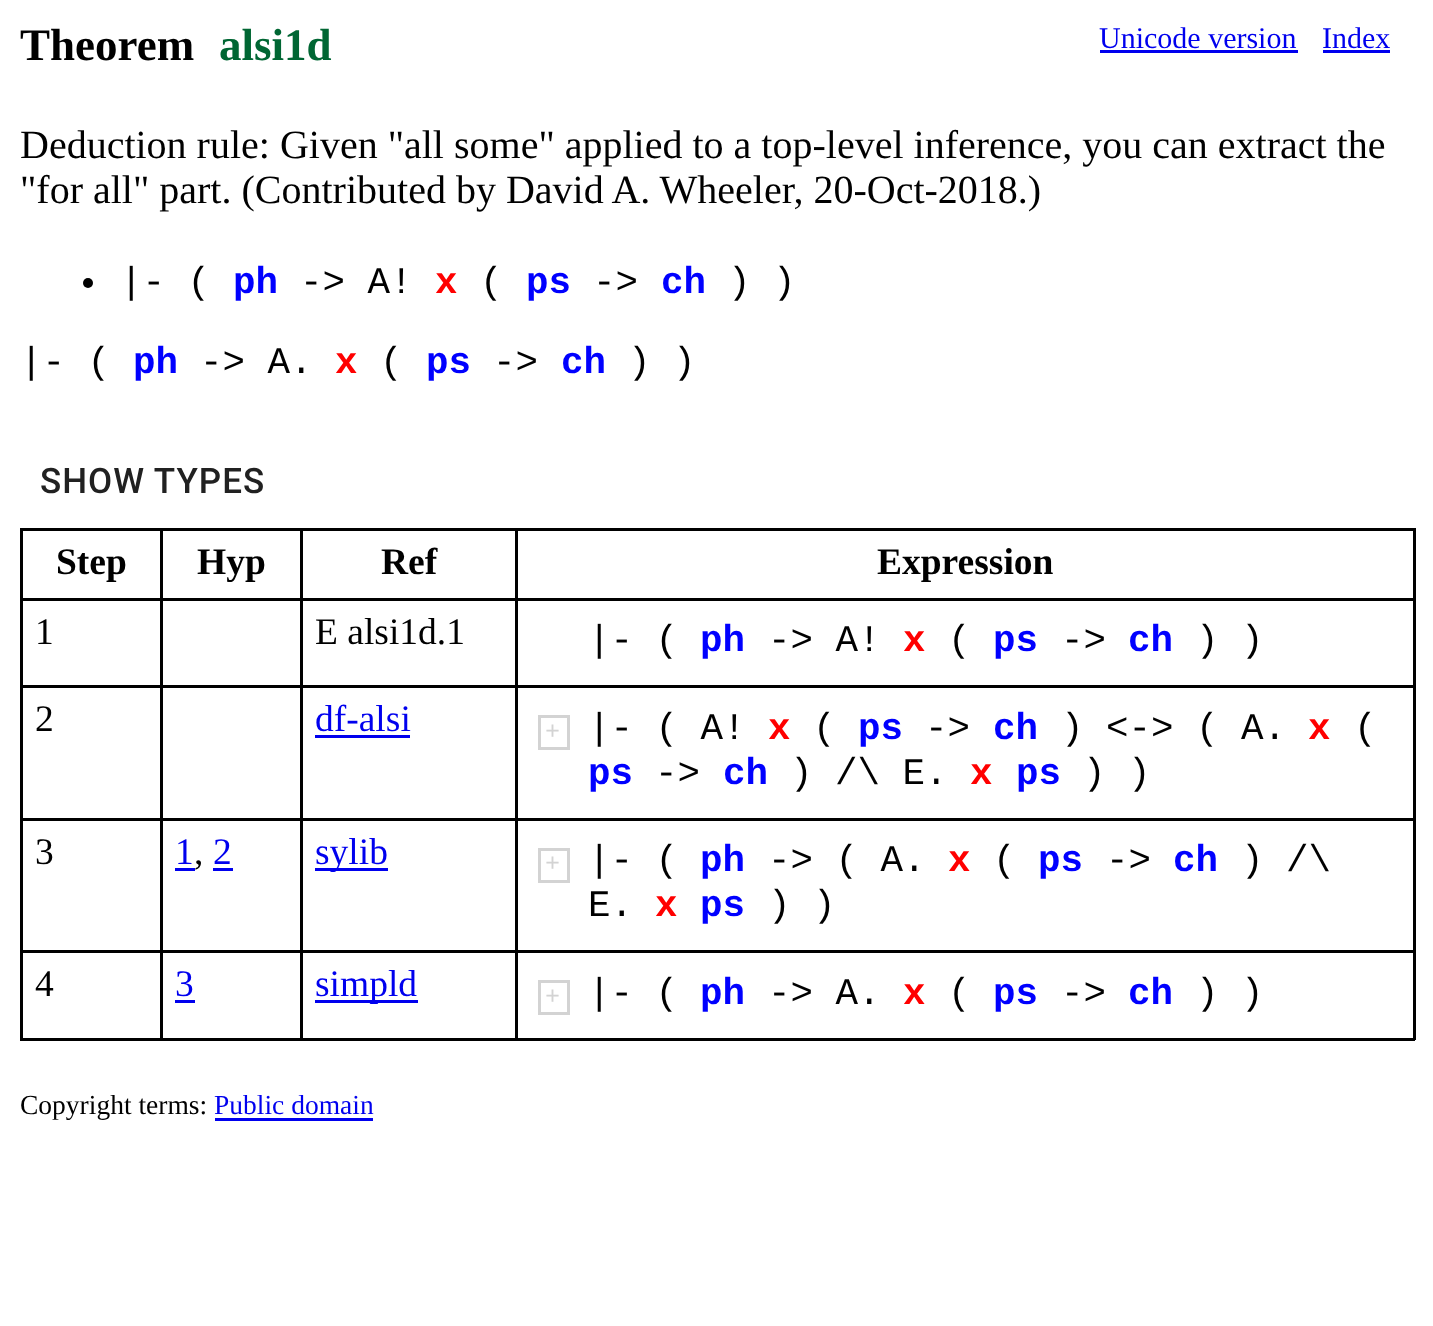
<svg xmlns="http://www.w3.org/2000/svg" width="1433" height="1326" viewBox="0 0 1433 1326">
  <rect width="100%" height="100%" fill="#ffffff"/>
  <text x="20" y="60" font-family="Liberation Serif" font-size="45" font-weight="bold" fill="#000000">Theorem</text>
  <text x="219" y="60" font-family="Liberation Serif" font-size="45" font-weight="bold" fill="#006633">alsi1d</text>
  <text x="1099" y="48" font-family="Liberation Serif" font-size="30" fill="#0000ee">Unicode version</text>
  <rect x="1100" y="50" width="198" height="3" fill="#0000ee"/>
  <text x="1322" y="48" font-family="Liberation Serif" font-size="30" fill="#0000ee">Index</text>
  <rect x="1323" y="50" width="67" height="3" fill="#0000ee"/>
  <text x="20" y="158" font-family="Liberation Serif" font-size="40" fill="#000000">Deduction rule: Given "all some" applied to a top-level inference, you can extract the</text>
  <text x="20" y="203" font-family="Liberation Serif" font-size="40" fill="#000000">"for all" part. (Contributed by David A. Wheeler, 20-Oct-2018.)</text>
  <circle cx="88" cy="283" r="5" fill="#000000"/>
  <text x="120" y="293" font-family="Liberation Mono" font-size="37.5" fill="#000000">|- (</text>
  <text x="233" y="293" font-family="Liberation Mono" font-size="37.5" font-weight="bold" fill="#0000ff">ph</text>
  <text x="300" y="293" font-family="Liberation Mono" font-size="37.5" fill="#000000">-&gt; A!</text>
  <text x="435" y="293" font-family="Liberation Mono" font-size="37.5" font-weight="bold" fill="#ff0000">x</text>
  <text x="480" y="293" font-family="Liberation Mono" font-size="37.5" fill="#000000">(</text>
  <text x="526" y="293" font-family="Liberation Mono" font-size="37.5" font-weight="bold" fill="#0000ff">ps</text>
  <text x="593" y="293" font-family="Liberation Mono" font-size="37.5" fill="#000000">-&gt;</text>
  <text x="661" y="293" font-family="Liberation Mono" font-size="37.5" font-weight="bold" fill="#0000ff">ch</text>
  <text x="728" y="293" font-family="Liberation Mono" font-size="37.5" fill="#000000">) )</text>
  <text x="20" y="373" font-family="Liberation Mono" font-size="37.5" fill="#000000">|- (</text>
  <text x="133" y="373" font-family="Liberation Mono" font-size="37.5" font-weight="bold" fill="#0000ff">ph</text>
  <text x="200" y="373" font-family="Liberation Mono" font-size="37.5" fill="#000000">-&gt; A.</text>
  <text x="335" y="373" font-family="Liberation Mono" font-size="37.5" font-weight="bold" fill="#ff0000">x</text>
  <text x="380" y="373" font-family="Liberation Mono" font-size="37.5" fill="#000000">(</text>
  <text x="426" y="373" font-family="Liberation Mono" font-size="37.5" font-weight="bold" fill="#0000ff">ps</text>
  <text x="493" y="373" font-family="Liberation Mono" font-size="37.5" fill="#000000">-&gt;</text>
  <text x="561" y="373" font-family="Liberation Mono" font-size="37.5" font-weight="bold" fill="#0000ff">ch</text>
  <text x="628" y="373" font-family="Liberation Mono" font-size="37.5" fill="#000000">) )</text>
  <text x="40" y="493" font-family="Roboto" font-size="35" font-weight="500" letter-spacing="1" fill="#212121">SHOW TYPES</text>
  <rect x="515" y="528" width="900" height="3" fill="#000000"/>
  <rect x="515" y="598" width="900" height="3" fill="#000000"/>
  <rect x="515" y="685" width="900" height="3" fill="#000000"/>
  <rect x="515" y="818" width="900" height="3" fill="#000000"/>
  <rect x="515" y="950" width="900" height="3" fill="#000000"/>
  <rect x="1413" y="950" width="3" height="90" fill="#000000"/>
  <rect x="515" y="1038" width="900" height="3" fill="#000000"/>
  <rect x="515" y="950" width="3" height="90" fill="#000000"/>
  <rect x="300" y="950" width="218" height="3" fill="#000000"/>
  <rect x="515" y="818" width="3" height="135" fill="#000000"/>
  <rect x="300" y="818" width="218" height="3" fill="#000000"/>
  <rect x="515" y="685" width="3" height="135" fill="#000000"/>
  <rect x="300" y="685" width="218" height="3" fill="#000000"/>
  <rect x="515" y="598" width="3" height="90" fill="#000000"/>
  <rect x="300" y="598" width="218" height="3" fill="#000000"/>
  <rect x="515" y="528" width="3" height="72" fill="#000000"/>
  <rect x="300" y="528" width="218" height="3" fill="#000000"/>
  <rect x="300" y="1038" width="218" height="3" fill="#000000"/>
  <rect x="300" y="950" width="3" height="90" fill="#000000"/>
  <rect x="160" y="950" width="143" height="3" fill="#000000"/>
  <rect x="300" y="818" width="3" height="135" fill="#000000"/>
  <rect x="160" y="818" width="143" height="3" fill="#000000"/>
  <rect x="300" y="685" width="3" height="135" fill="#000000"/>
  <rect x="160" y="685" width="143" height="3" fill="#000000"/>
  <rect x="300" y="598" width="3" height="90" fill="#000000"/>
  <rect x="160" y="598" width="143" height="3" fill="#000000"/>
  <rect x="300" y="528" width="3" height="72" fill="#000000"/>
  <rect x="160" y="528" width="143" height="3" fill="#000000"/>
  <rect x="160" y="1038" width="143" height="3" fill="#000000"/>
  <rect x="160" y="950" width="3" height="90" fill="#000000"/>
  <rect x="20" y="950" width="143" height="3" fill="#000000"/>
  <rect x="160" y="818" width="3" height="135" fill="#000000"/>
  <rect x="20" y="818" width="143" height="3" fill="#000000"/>
  <rect x="160" y="685" width="3" height="135" fill="#000000"/>
  <rect x="20" y="685" width="143" height="3" fill="#000000"/>
  <rect x="160" y="598" width="3" height="90" fill="#000000"/>
  <rect x="20" y="598" width="143" height="3" fill="#000000"/>
  <rect x="160" y="528" width="3" height="72" fill="#000000"/>
  <rect x="20" y="528" width="143" height="3" fill="#000000"/>
  <rect x="20" y="1038" width="143" height="3" fill="#000000"/>
  <rect x="20" y="950" width="3" height="90" fill="#000000"/>
  <rect x="20" y="818" width="3" height="135" fill="#000000"/>
  <rect x="20" y="685" width="3" height="135" fill="#000000"/>
  <rect x="20" y="598" width="3" height="90" fill="#000000"/>
  <rect x="20" y="528" width="3" height="72" fill="#000000"/>
  <text x="56" y="574" font-family="Liberation Serif" font-size="37.5" font-weight="bold" fill="#000000">Step</text>
  <text x="197" y="574" font-family="Liberation Serif" font-size="37.5" font-weight="bold" fill="#000000">Hyp</text>
  <text x="381" y="574" font-family="Liberation Serif" font-size="37.5" font-weight="bold" fill="#000000">Ref</text>
  <rect x="1413" y="818" width="3" height="135" fill="#000000"/>
  <rect x="1413" y="685" width="3" height="135" fill="#000000"/>
  <rect x="1413" y="598" width="3" height="90" fill="#000000"/>
  <rect x="1413" y="528" width="3" height="72" fill="#000000"/>
  <text x="877" y="574" font-family="Liberation Serif" font-size="37.5" font-weight="bold" fill="#000000">Expression</text>
  <text x="35" y="644" font-family="Liberation Serif" font-size="37.5" fill="#000000">1</text>
  <text x="315" y="644" font-family="Liberation Serif" font-size="37.5" fill="#000000">E alsi1d.1</text>
  <text x="588" y="651" font-family="Liberation Mono" font-size="37.5" fill="#000000">|- (</text>
  <text x="700" y="651" font-family="Liberation Mono" font-size="37.5" font-weight="bold" fill="#0000ff">ph</text>
  <text x="768" y="651" font-family="Liberation Mono" font-size="37.5" fill="#000000">-&gt; A!</text>
  <text x="903" y="651" font-family="Liberation Mono" font-size="37.5" font-weight="bold" fill="#ff0000">x</text>
  <text x="948" y="651" font-family="Liberation Mono" font-size="37.5" fill="#000000">(</text>
  <text x="993" y="651" font-family="Liberation Mono" font-size="37.5" font-weight="bold" fill="#0000ff">ps</text>
  <text x="1061" y="651" font-family="Liberation Mono" font-size="37.5" fill="#000000">-&gt;</text>
  <text x="1128" y="651" font-family="Liberation Mono" font-size="37.5" font-weight="bold" fill="#0000ff">ch</text>
  <text x="1196" y="651" font-family="Liberation Mono" font-size="37.5" fill="#000000">) )</text>
  <text x="35" y="731" font-family="Liberation Serif" font-size="37.5" fill="#000000">2</text>
  <text x="315" y="731" font-family="Liberation Serif" font-size="37.5" fill="#0000ee">df-alsi</text>
  <rect x="315" y="735" width="95" height="3" fill="#0000ee"/>
  <rect x="539.5" y="716.5" width="29" height="32" fill="none" stroke="#d3d3d3" stroke-width="3"/>
  <text x="545" y="739" font-family="Liberation Mono" font-size="25" fill="#d3d3d3">+</text>
  <text x="588" y="739" font-family="Liberation Mono" font-size="37.5" fill="#000000">|- ( A!</text>
  <text x="768" y="739" font-family="Liberation Mono" font-size="37.5" font-weight="bold" fill="#ff0000">x</text>
  <text x="813" y="739" font-family="Liberation Mono" font-size="37.5" fill="#000000">(</text>
  <text x="858" y="739" font-family="Liberation Mono" font-size="37.5" font-weight="bold" fill="#0000ff">ps</text>
  <text x="925" y="739" font-family="Liberation Mono" font-size="37.5" fill="#000000">-&gt;</text>
  <text x="993" y="739" font-family="Liberation Mono" font-size="37.5" font-weight="bold" fill="#0000ff">ch</text>
  <text x="1061" y="739" font-family="Liberation Mono" font-size="37.5" fill="#000000">) &lt;-&gt; ( A.</text>
  <text x="1308" y="739" font-family="Liberation Mono" font-size="37.5" font-weight="bold" fill="#ff0000">x</text>
  <text x="1354" y="739" font-family="Liberation Mono" font-size="37.5" fill="#000000">(</text>
  <text x="588" y="784" font-family="Liberation Mono" font-size="37.5" font-weight="bold" fill="#0000ff">ps</text>
  <text x="655" y="784" font-family="Liberation Mono" font-size="37.5" fill="#000000">-&gt;</text>
  <text x="723" y="784" font-family="Liberation Mono" font-size="37.5" font-weight="bold" fill="#0000ff">ch</text>
  <text x="790" y="784" font-family="Liberation Mono" font-size="37.5" fill="#000000">) /\ E.</text>
  <text x="970" y="784" font-family="Liberation Mono" font-size="37.5" font-weight="bold" fill="#ff0000">x</text>
  <text x="1016" y="784" font-family="Liberation Mono" font-size="37.5" font-weight="bold" fill="#0000ff">ps</text>
  <text x="1083" y="784" font-family="Liberation Mono" font-size="37.5" fill="#000000">) )</text>
  <text x="35" y="864" font-family="Liberation Serif" font-size="37.5" fill="#000000">3</text>
  <text x="175" y="864" font-family="Liberation Serif" font-size="37.5" fill="#0000ee">1</text>
  <rect x="175" y="868" width="20" height="3" fill="#0000ee"/>
  <text x="213" y="864" font-family="Liberation Serif" font-size="37.5" fill="#0000ee">2</text>
  <rect x="213" y="868" width="20" height="3" fill="#0000ee"/>
  <text x="194" y="864" font-family="Liberation Serif" font-size="37.5" fill="#000000">,</text>
  <rect x="315" y="868" width="73" height="3" fill="#0000ee"/>
  <text x="315" y="864" font-family="Liberation Serif" font-size="37.5" fill="#0000ee">sylib</text>
  <rect x="539.5" y="849.5" width="29" height="32" fill="none" stroke="#d3d3d3" stroke-width="3"/>
  <text x="545" y="871" font-family="Liberation Mono" font-size="25" fill="#d3d3d3">+</text>
  <text x="588" y="871" font-family="Liberation Mono" font-size="37.5" fill="#000000">|- (</text>
  <text x="700" y="871" font-family="Liberation Mono" font-size="37.5" font-weight="bold" fill="#0000ff">ph</text>
  <text x="768" y="871" font-family="Liberation Mono" font-size="37.5" fill="#000000">-&gt; ( A.</text>
  <text x="948" y="871" font-family="Liberation Mono" font-size="37.5" font-weight="bold" fill="#ff0000">x</text>
  <text x="993" y="871" font-family="Liberation Mono" font-size="37.5" fill="#000000">(</text>
  <text x="1038" y="871" font-family="Liberation Mono" font-size="37.5" font-weight="bold" fill="#0000ff">ps</text>
  <text x="1106" y="871" font-family="Liberation Mono" font-size="37.5" fill="#000000">-&gt;</text>
  <text x="1173" y="871" font-family="Liberation Mono" font-size="37.5" font-weight="bold" fill="#0000ff">ch</text>
  <text x="1241" y="871" font-family="Liberation Mono" font-size="37.5" fill="#000000">) /\</text>
  <text x="588" y="916" font-family="Liberation Mono" font-size="37.5" fill="#000000">E.</text>
  <text x="655" y="916" font-family="Liberation Mono" font-size="37.5" font-weight="bold" fill="#ff0000">x</text>
  <text x="700" y="916" font-family="Liberation Mono" font-size="37.5" font-weight="bold" fill="#0000ff">ps</text>
  <text x="768" y="916" font-family="Liberation Mono" font-size="37.5" fill="#000000">) )</text>
  <text x="35" y="996" font-family="Liberation Serif" font-size="37.5" fill="#000000">4</text>
  <text x="175" y="996" font-family="Liberation Serif" font-size="37.5" fill="#0000ee">3</text>
  <rect x="175" y="1000" width="20" height="3" fill="#0000ee"/>
  <rect x="315" y="1000" width="103" height="3" fill="#0000ee"/>
  <text x="315" y="996" font-family="Liberation Serif" font-size="37.5" fill="#0000ee">simpld</text>
  <rect x="539.5" y="981.5" width="29" height="32" fill="none" stroke="#d3d3d3" stroke-width="3"/>
  <text x="545" y="1004" font-family="Liberation Mono" font-size="25" fill="#d3d3d3">+</text>
  <text x="588" y="1004" font-family="Liberation Mono" font-size="37.5" fill="#000000">|- (</text>
  <text x="700" y="1004" font-family="Liberation Mono" font-size="37.5" font-weight="bold" fill="#0000ff">ph</text>
  <text x="768" y="1004" font-family="Liberation Mono" font-size="37.5" fill="#000000">-&gt; A.</text>
  <text x="903" y="1004" font-family="Liberation Mono" font-size="37.5" font-weight="bold" fill="#ff0000">x</text>
  <text x="948" y="1004" font-family="Liberation Mono" font-size="37.5" fill="#000000">(</text>
  <text x="993" y="1004" font-family="Liberation Mono" font-size="37.5" font-weight="bold" fill="#0000ff">ps</text>
  <text x="1061" y="1004" font-family="Liberation Mono" font-size="37.5" fill="#000000">-&gt;</text>
  <text x="1128" y="1004" font-family="Liberation Mono" font-size="37.5" font-weight="bold" fill="#0000ff">ch</text>
  <text x="1196" y="1004" font-family="Liberation Mono" font-size="37.5" fill="#000000">) )</text>
  <text x="20" y="1114" font-family="Liberation Serif" font-size="27.5" fill="#000000">Copyright terms:</text>
  <text x="214" y="1114" font-family="Liberation Serif" font-size="27.5" fill="#0000ee">Public domain</text>
  <rect x="215" y="1118" width="158" height="3" fill="#0000ee"/>
</svg>
